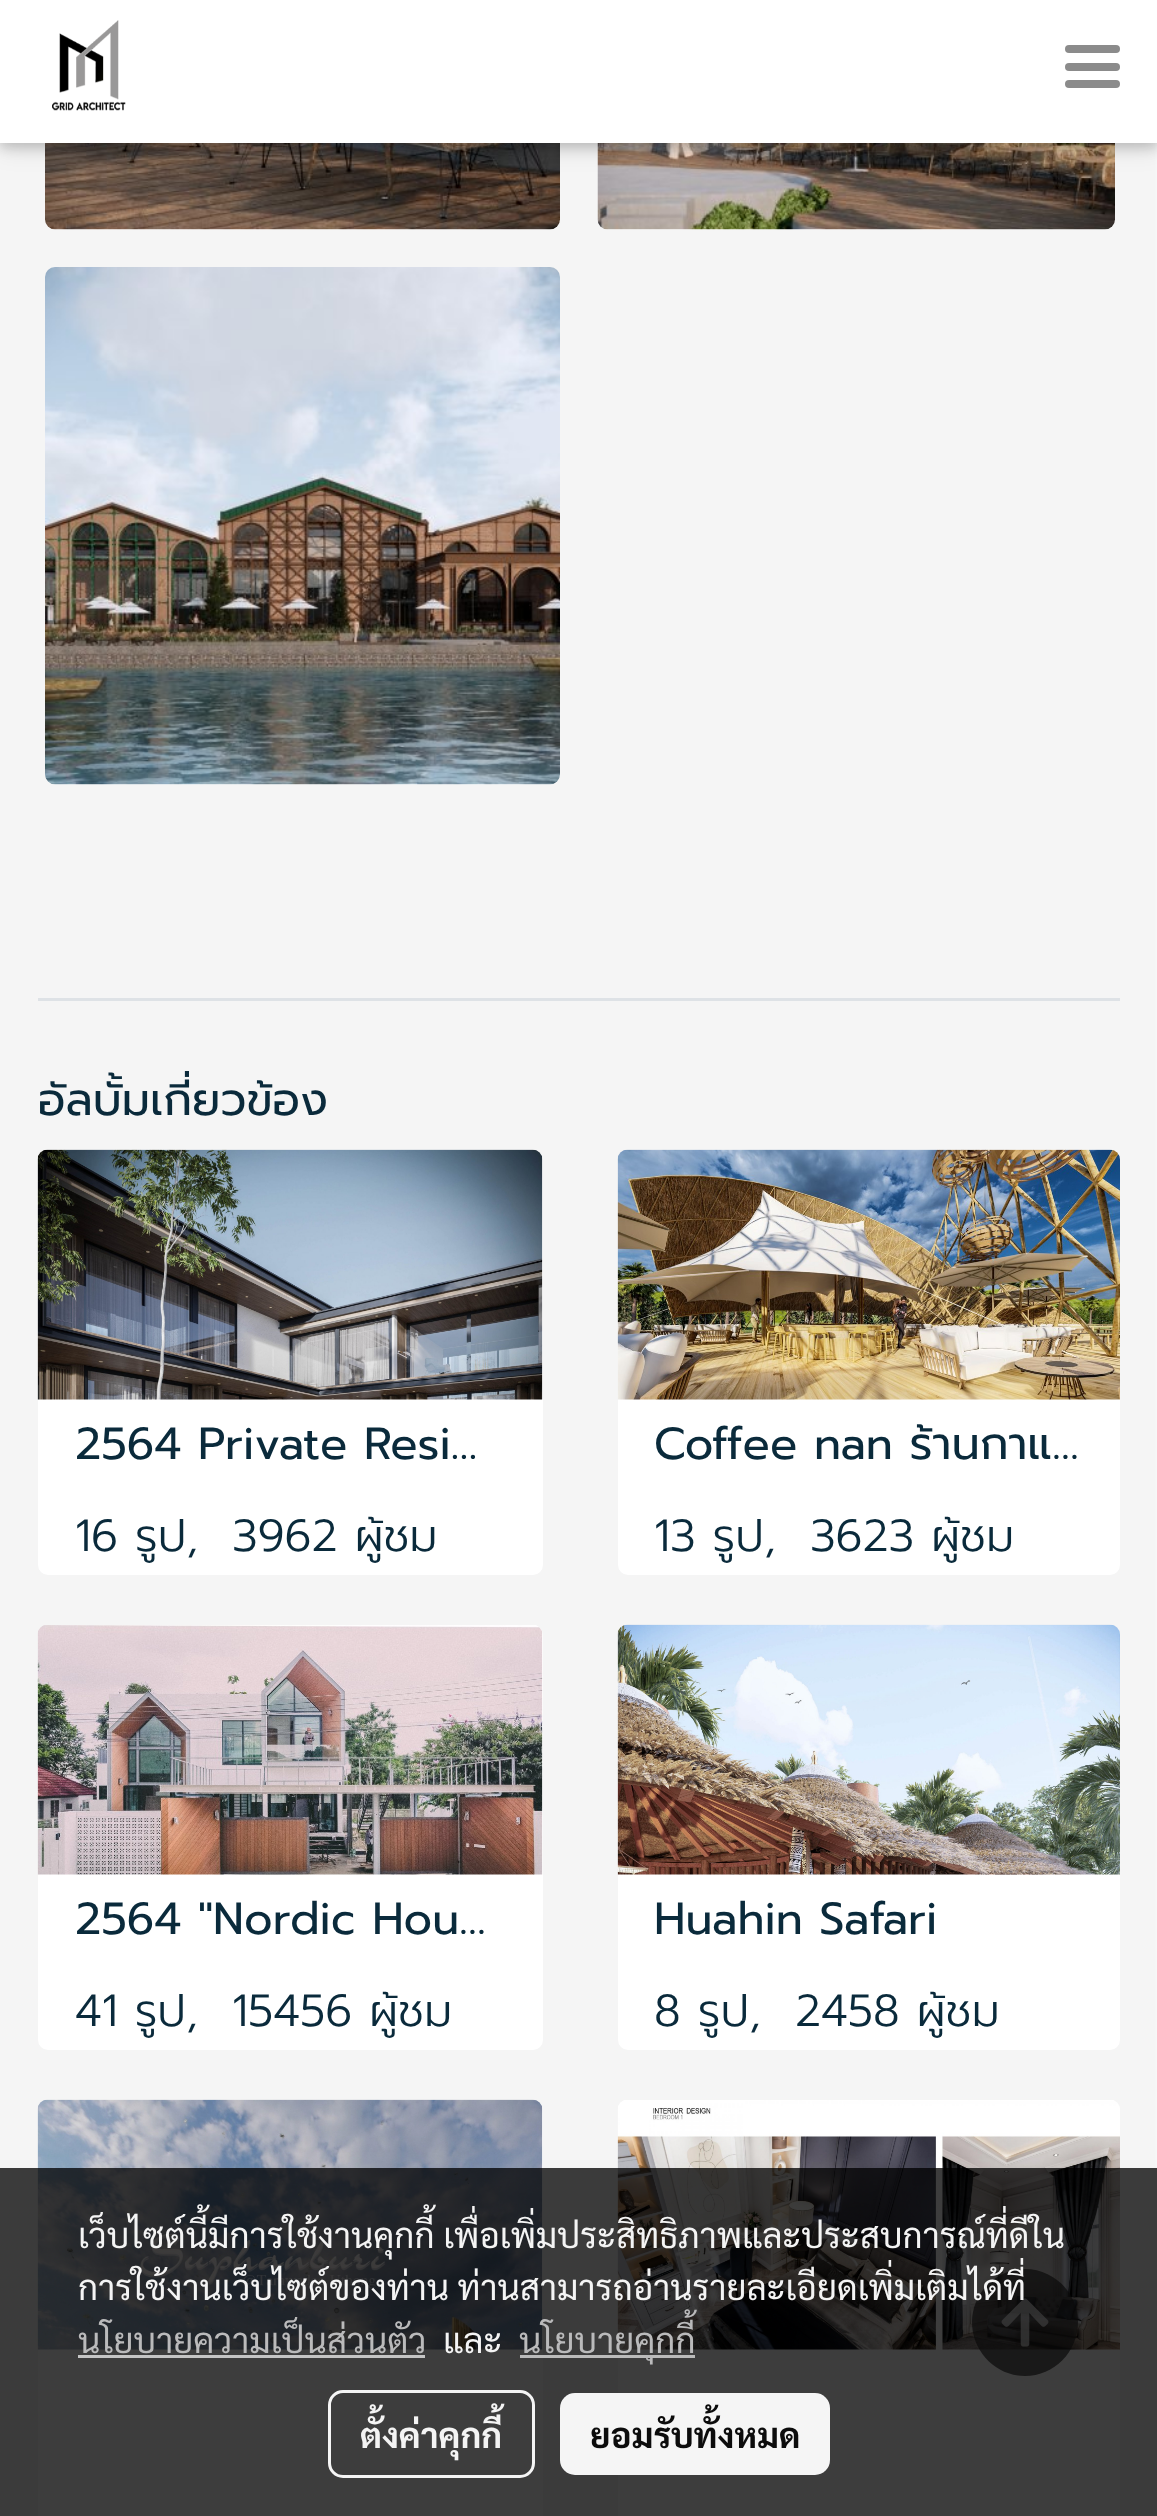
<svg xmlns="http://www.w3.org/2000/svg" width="1157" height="2516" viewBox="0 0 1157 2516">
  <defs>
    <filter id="blur1" x="-50%" y="-200%" width="200%" height="500%"><feGaussianBlur stdDeviation="12.5"/></filter>
    <filter id="blur2" x="-50%" y="-200%" width="200%" height="500%"><feGaussianBlur stdDeviation="6"/></filter>
  </defs>
  <rect width="100%" height="100%" fill="#ffffff"/>
  <image x="0" y="143" width="1157" height="2373" href="img1.png"/>
  <rect x="45" y="-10" width="515" height="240" rx="10" fill="#ffffff"/>
  <image x="45" y="143" width="515" height="87" href="img3.png"/>
  <rect x="598" y="-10" width="517" height="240" rx="10" fill="#ffffff"/>
  <image x="597" y="143" width="518" height="87" href="img4.png"/>
  <rect x="0" y="5" width="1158" height="143" fill="#000000" fill-opacity="0.12" filter="url(#blur1)"/>
  <rect x="0" y="5" width="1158" height="143" fill="#000000" fill-opacity="0.16" filter="url(#blur2)"/>
  <rect x="0" y="0" width="1157" height="143" fill="#ffffff"/>
  <image x="52" y="20" width="74" height="91" href="img2.png"/>
  <rect x="1065" y="63" width="55" height="8" rx="4" fill="#8b8b8b"/>
  <rect x="1065" y="45" width="55" height="8" rx="4" fill="#8b8b8b"/>
  <rect x="1065" y="80" width="55" height="8" rx="4" fill="#8b8b8b"/>
  <rect x="45" y="268" width="515" height="517" rx="10" fill="#ffffff"/>
  <image x="45" y="267" width="515" height="518" href="img5.png"/>
  <rect x="38" y="998" width="1082" height="3" fill="#dee2e6"/>
  <text x="38" y="1115" font-family="Prompt" font-size="45" fill="#0a2a3b">อัลบั้มเกี่ยวข้อง</text>
  <rect x="38" y="1150" width="505" height="425" rx="10" fill="#ffffff"/>
  <image x="37" y="1149" width="506" height="251" href="img6.png"/>
  <text x="75" y="1459" font-family="Prompt" font-size="45" fill="#0a2a3b">2564 Private Resi…</text>
  <text x="75" y="1551" font-family="Prompt" font-size="45" font-weight="300" fill="#0a2a3b">16 รูป,</text>
  <text x="232" y="1551" font-family="Prompt" font-size="45" font-weight="300" fill="#0a2a3b">3962 ผู้ชม</text>
  <rect x="618" y="1150" width="502" height="425" rx="10" fill="#ffffff"/>
  <image x="617" y="1149" width="503" height="251" href="img7.png"/>
  <text x="654" y="1459" font-family="Prompt" font-size="45" fill="#0a2a3b">Coffee nan ร้านกาแ…</text>
  <text x="654" y="1551" font-family="Prompt" font-size="45" font-weight="300" fill="#0a2a3b">13 รูป,</text>
  <text x="810" y="1551" font-family="Prompt" font-size="45" font-weight="300" fill="#0a2a3b">3623 ผู้ชม</text>
  <rect x="38" y="1625" width="505" height="425" rx="10" fill="#ffffff"/>
  <image x="37" y="1625" width="506" height="250" href="img8.png"/>
  <text x="75" y="1934" font-family="Prompt" font-size="45" fill="#0a2a3b">2564 "Nordic Hou…</text>
  <text x="75" y="2026" font-family="Prompt" font-size="45" font-weight="300" fill="#0a2a3b">41 รูป,</text>
  <text x="232" y="2026" font-family="Prompt" font-size="45" font-weight="300" fill="#0a2a3b">15456 ผู้ชม</text>
  <rect x="618" y="1625" width="502" height="425" rx="10" fill="#ffffff"/>
  <image x="617" y="1624" width="503" height="251" href="img9.png"/>
  <text x="654" y="1934" font-family="Prompt" font-size="45" fill="#0a2a3b">Huahin Safari</text>
  <text x="654" y="2026" font-family="Prompt" font-size="45" font-weight="300" fill="#0a2a3b">8 รูป,</text>
  <text x="795" y="2026" font-family="Prompt" font-size="45" font-weight="300" fill="#0a2a3b">2458 ผู้ชม</text>
  <rect x="38" y="2100" width="505" height="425" rx="10" fill="#ffffff"/>
  <image x="37" y="2099" width="506" height="251" href="img10.png"/>
  <rect x="618" y="2100" width="502" height="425" rx="10" fill="#ffffff"/>
  <image x="617" y="2100" width="503" height="250" href="img11.png"/>
  <path d="M1025 2269C996 2269 972 2293 972 2322C972 2352 996 2376 1025 2376C1054 2376 1078 2352 1078 2322C1078 2293 1054 2269 1025 2269Z" fill="#2b2a2a" fill-opacity="0.7"/>
  <image x="1001" y="2298" width="48" height="49" href="img12.png"/>
  <rect x="0" y="2168" width="1157" height="348" fill="#000000" fill-opacity="0.76"/>
  <text x="78" y="2248" font-family="Sarabun" font-size="35" fill="#f4f4f4">เว็บไซต์นี้มีการใช้งานคุกกี้ เพื่อเพิ่มประสิทธิภาพและประสบการณ์ที่ดีใน</text>
  <text x="78" y="2300" font-family="Sarabun" font-size="35" fill="#f4f4f4">การใช้งานเว็บไซต์ของท่าน ท่านสามารถอ่านรายละเอียดเพิ่มเติมได้ที่</text>
  <text x="78" y="2353" font-family="Sarabun" font-size="35" fill="#bababb">นโยบายความเป็นส่วนตัว</text>
  <rect x="78" y="2355" width="347" height="3" fill="#c5c5c5"/>
  <text x="443" y="2353" font-family="Sarabun" font-size="35" fill="#f4f4f4">และ</text>
  <rect x="520" y="2355" width="175" height="3" fill="#bbbbbb"/>
  <text x="519" y="2353" font-family="Sarabun" font-size="35" fill="#bababb">นโยบายคุกกี้</text>
  <rect x="329.5" y="2391.5" width="204" height="85" rx="13.5" fill="none" stroke="#ffffff" stroke-opacity="0.95" stroke-width="3"/>
  <text x="360" y="2448" font-family="Sarabun" font-size="35" font-weight="bold" fill="#f4f4f4">ตั้งค่าคุกกี้</text>
  <rect x="560" y="2393" width="270" height="82" rx="15" fill="#ffffff" fill-opacity="0.95"/>
  <text x="590" y="2448" font-family="Sarabun" font-size="35" font-weight="bold" fill="#0c0c0c">ยอมรับทั้งหมด</text>
</svg>
